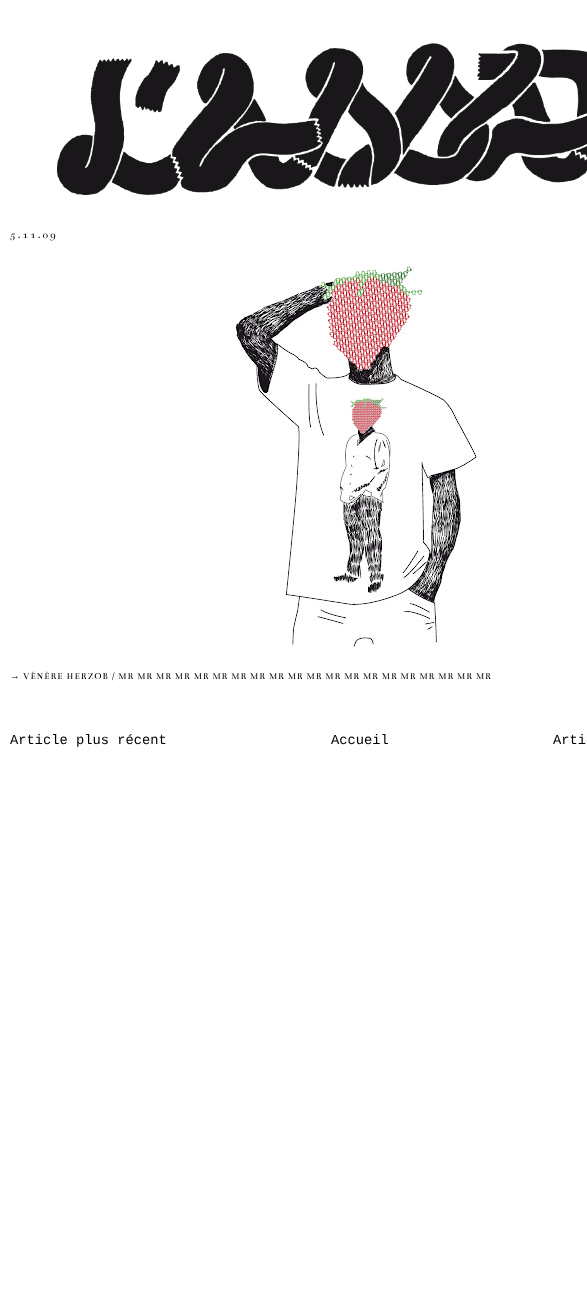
<svg xmlns="http://www.w3.org/2000/svg" width="587" height="1308" viewBox="0 0 587 1308">
  <rect width="100%" height="100%" fill="#ffffff"/>
  <image x="57" y="43" width="530" height="152" href="img1.png"/>
  <text x="10" y="238" font-family="Bentham" font-size="10.75" letter-spacing="2.25" fill="#000000">5.11.09</text>
  <image x="232" y="263" width="247" height="384" href="img2.png"/>
  <text x="10" y="679" font-family="Liberation Serif" font-size="9.5" letter-spacing="0.95" fill="#000000">→</text>
  <text x="23" y="679" font-family="Bentham" font-size="9.5" letter-spacing="0.95" fill="#000000">VÉNÈRE HERZOB / MR MR MR MR MR MR MR MR MR MR MR MR MR MR MR MR MR MR MR MR</text>
  <text x="10" y="744" font-family="Liberation Mono" font-size="13.75" fill="#000000">Article plus récent</text>
  <text x="331" y="744" font-family="Liberation Mono" font-size="13.75" fill="#000000">Accueil</text>
  <text x="553" y="744" font-family="Liberation Mono" font-size="13.75" fill="#000000">Arti</text>
</svg>
